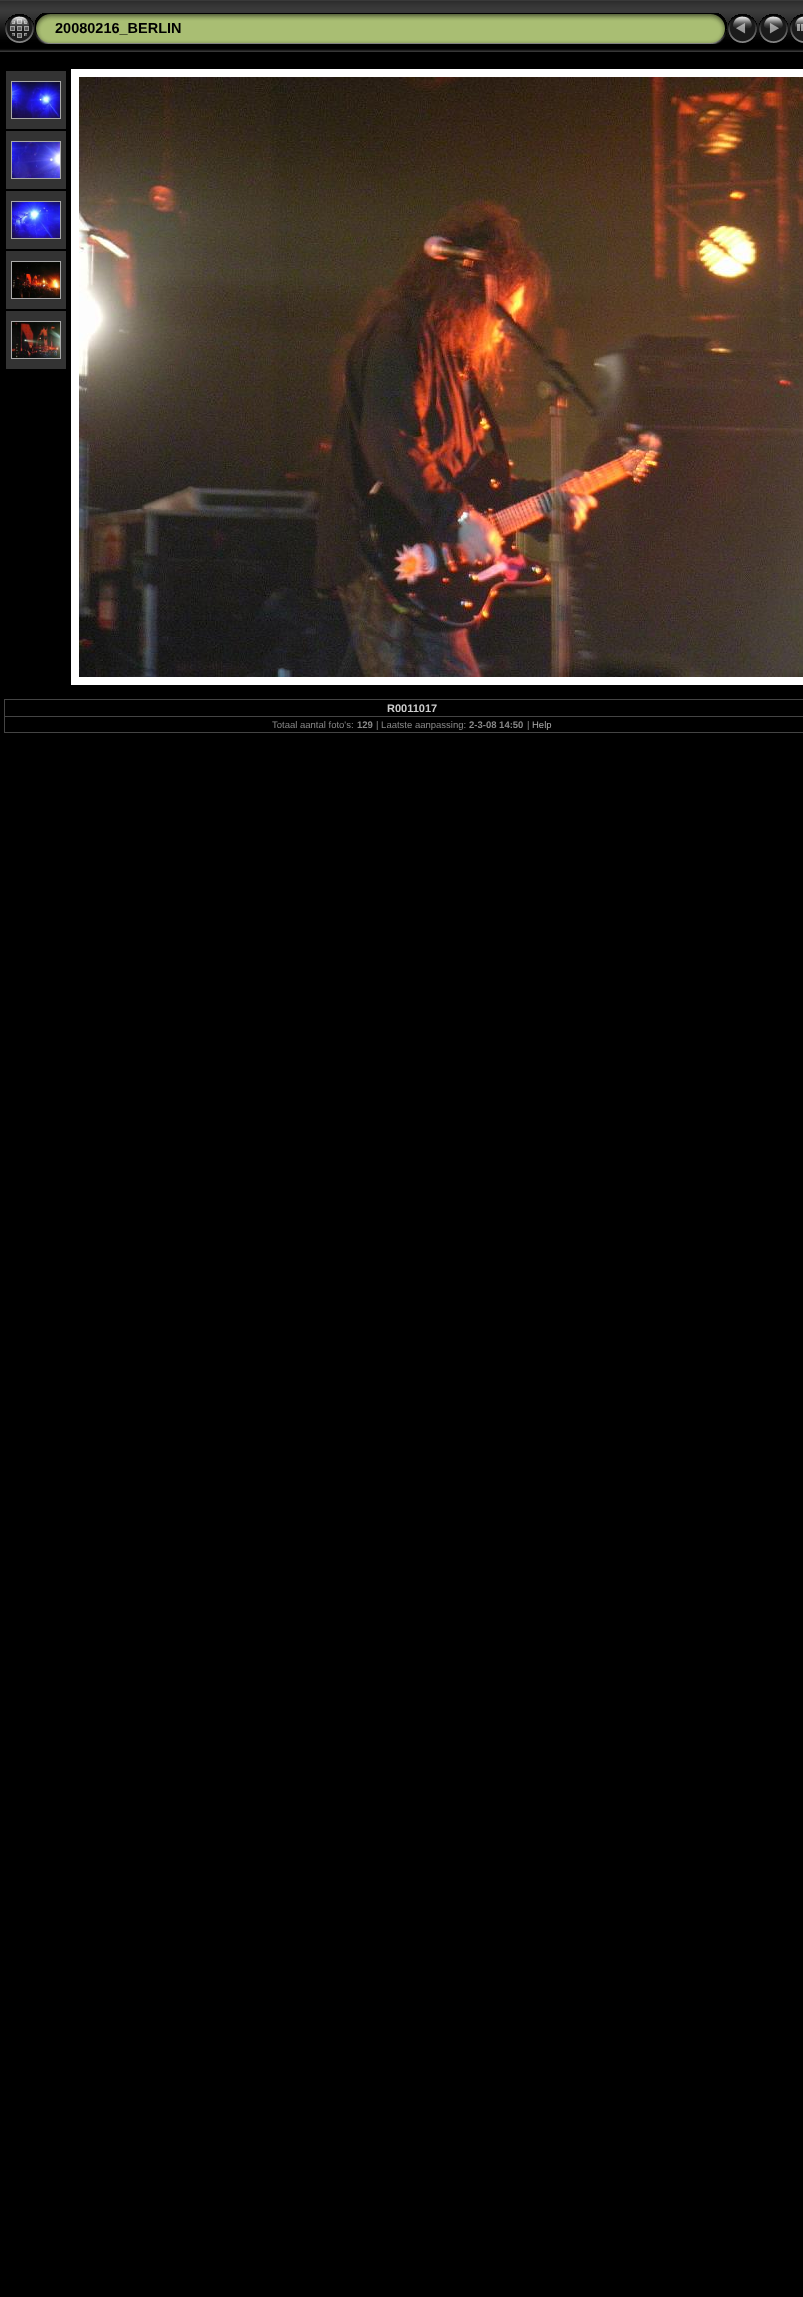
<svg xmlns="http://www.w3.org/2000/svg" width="803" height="2297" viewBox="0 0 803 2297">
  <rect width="100%" height="100%" fill="#000000"/>
  <image x="0" y="1" width="803" height="51" href="img1.png"/>
  <rect x="0" y="0" width="803" height="1" fill="#393939"/>
  <image x="5" y="14" width="29" height="29" href="img2.png"/>
  <image x="35" y="13" width="20" height="31" href="img3.png"/>
  <image x="55" y="13" width="652" height="31" href="img4.png"/>
  <text x="55" y="33" font-family="Liberation Sans" font-size="14.5" font-weight="bold" fill="#000000">20080216_BERLIN</text>
  <image x="707" y="13" width="20" height="31" href="img5.png"/>
  <image x="728" y="14" width="29" height="29" href="img6.png"/>
  <image x="759" y="14" width="29" height="29" href="img7.png"/>
  <image x="790" y="14" width="13" height="29" href="img8.png"/>
  <rect x="6" y="71" width="60" height="58" fill="#333333"/>
  <rect x="11.5" y="81.5" width="49" height="37" fill="none" stroke="#aaaaaa"/>
  <image x="12" y="82" width="48" height="36" href="img9.png"/>
  <rect x="6" y="131" width="60" height="58" fill="#333333"/>
  <rect x="11.5" y="141.5" width="49" height="37" fill="none" stroke="#aaaaaa"/>
  <image x="12" y="142" width="48" height="36" href="img10.png"/>
  <rect x="6" y="191" width="60" height="58" fill="#333333"/>
  <rect x="11.5" y="201.5" width="49" height="37" fill="none" stroke="#aaaaaa"/>
  <image x="12" y="202" width="48" height="36" href="img11.png"/>
  <rect x="6" y="251" width="60" height="58" fill="#333333"/>
  <rect x="11.5" y="261.5" width="49" height="37" fill="none" stroke="#aaaaaa"/>
  <image x="12" y="262" width="48" height="36" href="img12.png"/>
  <rect x="6" y="311" width="60" height="58" fill="#333333"/>
  <rect x="11.5" y="321.5" width="49" height="37" fill="none" stroke="#aaaaaa"/>
  <image x="12" y="322" width="48" height="36" href="img13.png"/>
  <rect x="75" y="73" width="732" height="608" fill="none" stroke="#ffffff" stroke-width="8"/>
  <image x="79" y="77" width="724" height="600" href="img14.png"/>
  <rect x="4" y="699" width="799" height="1" fill="#444444"/>
  <rect x="4" y="732" width="799" height="1" fill="#444444"/>
  <rect x="4" y="699" width="1" height="34" fill="#444444"/>
  <text x="387" y="712" font-family="Liberation Sans" font-size="11" font-weight="bold" fill="#cccccc">R0011017</text>
  <rect x="4" y="716" width="799" height="1" fill="#444444"/>
  <text x="272" y="728" font-family="Liberation Sans" font-size="9.5" fill="#888888">Totaal aantal foto's:</text>
  <text x="357" y="728" font-family="Liberation Sans" font-size="9.5" font-weight="bold" fill="#888888">129</text>
  <text x="376" y="728" font-family="Liberation Sans" font-size="9.5" fill="#888888">| Laatste aanpassing:</text>
  <text x="469" y="728" font-family="Liberation Sans" font-size="9.5" font-weight="bold" fill="#888888">2-3-08 14:50</text>
  <text x="527" y="728" font-family="Liberation Sans" font-size="9.5" fill="#888888">|</text>
  <text x="532" y="728" font-family="Liberation Sans" font-size="9.5" fill="#aaaaaa">Help</text>
</svg>
